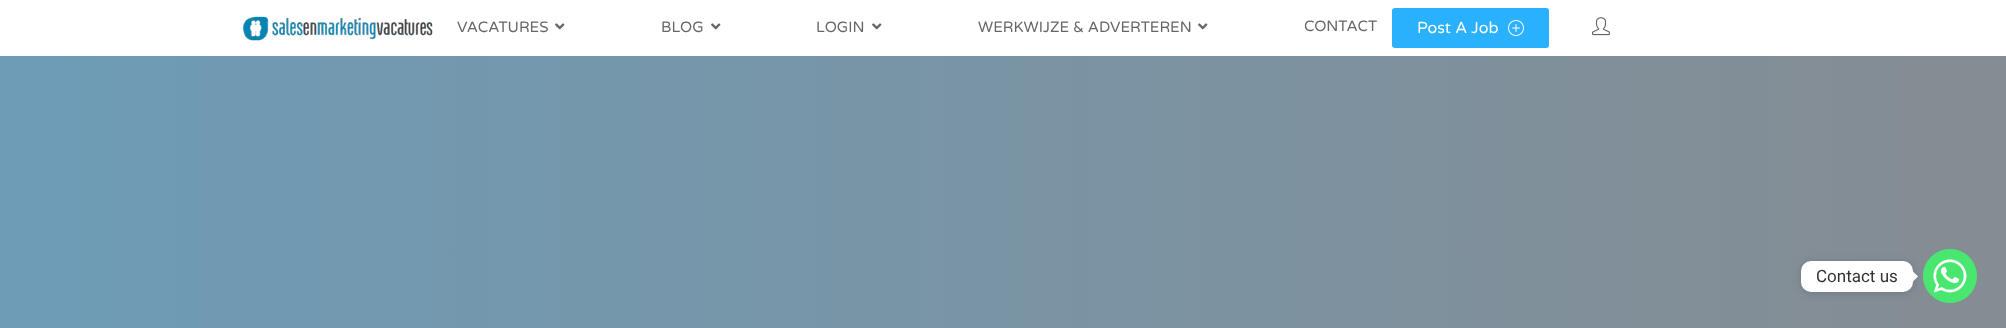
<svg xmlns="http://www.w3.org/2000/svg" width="2006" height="328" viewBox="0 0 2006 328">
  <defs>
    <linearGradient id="g1" gradientUnits="userSpaceOnUse" x1="-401" y1="256" x2="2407" y2="256"><stop offset="0" stop-color="#699fbe"/><stop offset="1" stop-color="#8a898b"/></linearGradient>
    <filter id="blur1" x="-50%" y="-200%" width="200%" height="500%"><feGaussianBlur stdDeviation="4"/></filter>
  </defs>
  <rect width="100%" height="100%" fill="#ffffff"/>
  <image x="243" y="16" width="190" height="25" href="img1.png"/>
  <text x="457" y="32" font-family="Varela Round" font-size="15" fill="#666666">VACATURES</text>
  <image x="555" y="23" width="10" height="7" href="img2.png"/>
  <text x="661" y="32" font-family="Varela Round" font-size="15" fill="#666666">BLOG</text>
  <image x="711" y="23" width="10" height="7" href="img2.png"/>
  <text x="816" y="32" font-family="Varela Round" font-size="15" fill="#666666">LOGIN</text>
  <image x="872" y="23" width="10" height="7" href="img2.png"/>
  <text x="978" y="32" font-family="Varela Round" font-size="15" fill="#666666">WERKWIJZE &amp; ADVERTEREN</text>
  <image x="1198" y="23" width="10" height="7" href="img2.png"/>
  <text x="1304" y="31" font-family="Varela Round" font-size="15" fill="#666666">CONTACT</text>
  <rect x="1392" y="8" width="157" height="40" rx="3" fill="#29b1fd"/>
  <text x="1417" y="33" font-family="Varela Round" font-size="16" fill="#ffffff">Post A Job</text>
  <image x="1508" y="20" width="16" height="16" href="img3.png"/>
  <image x="1592" y="17" width="18" height="19" href="img4.png"/>
  <rect x="0" y="56" width="2006" height="272" fill="url(#g1)"/>
  <image x="1923" y="249" width="54" height="54" href="img5.png"/>
  <rect x="1801" y="262" width="112" height="31" rx="10" fill="#000000" fill-opacity="0.15" filter="url(#blur1)"/>
  <rect x="1801" y="261" width="112" height="31" rx="10" fill="#ffffff"/>
  <text x="1816" y="282" font-family="Roboto" font-size="17" fill="#333333">Contact us</text>
  <path d="M1913 281.5V271.5L1918 276.5Z" fill="#ffffff"/>
</svg>
